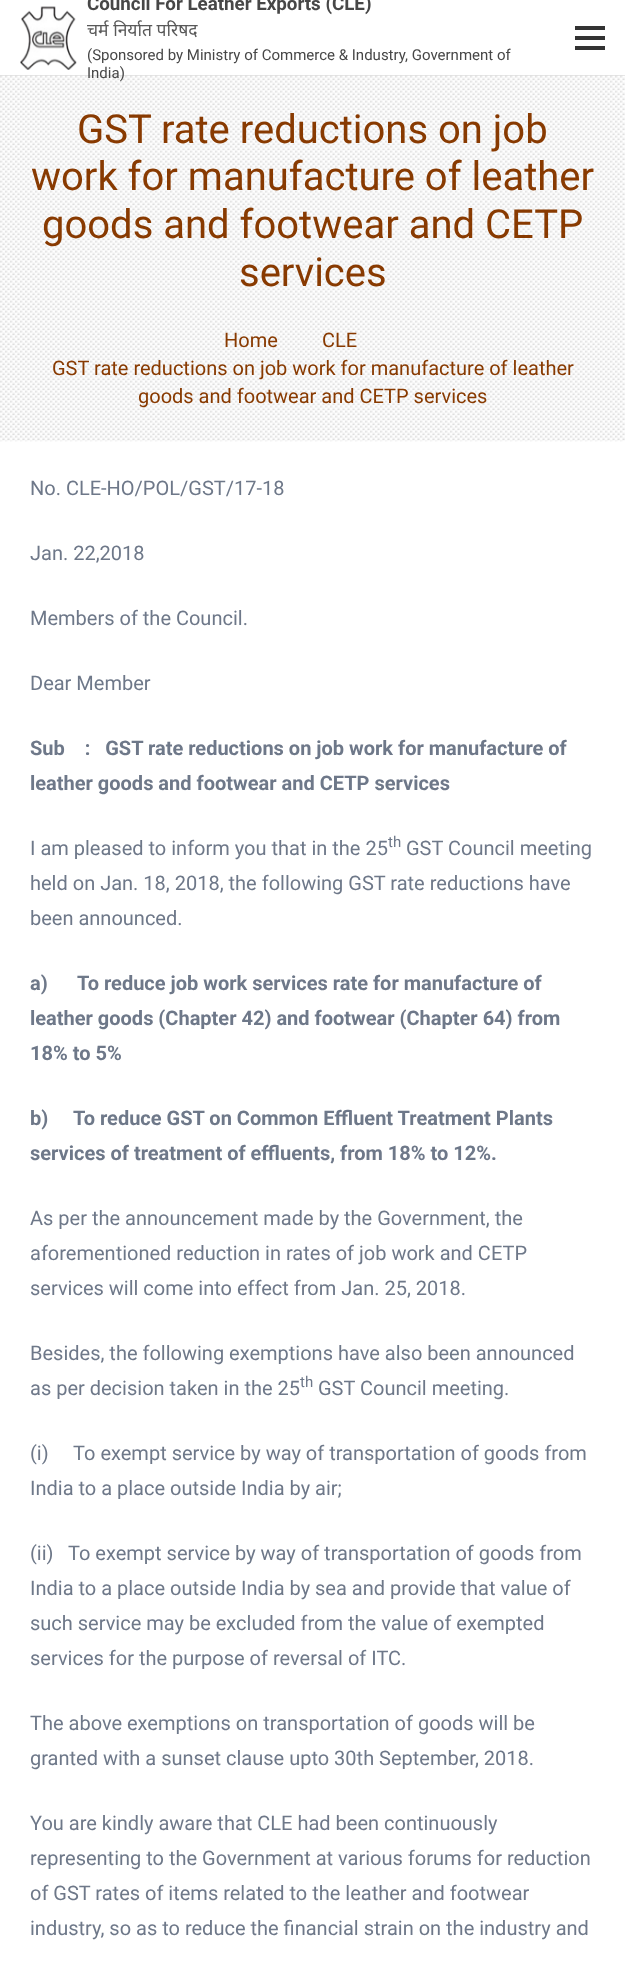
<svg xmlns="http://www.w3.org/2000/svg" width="625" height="1966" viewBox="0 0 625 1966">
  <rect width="100%" height="100%" fill="#ffffff"/>
  <image x="0" y="75" width="625" height="367" href="img2.png"/>
  <rect x="0" y="75" width="625" height="1" fill="#000000" fill-opacity="0.08"/>
  <image x="20" y="6" width="57" height="64" href="img1.png"/>
  <text x="87" y="10" font-family="Roboto" font-size="18.75" font-weight="bold" fill="#474747">Council For Leather Exports (CLE)</text>
  <text x="87" y="36" font-family="Noto Sans" font-size="17.5" fill="#595959">चर्म निर्यात परिषद</text>
  <text x="87" y="60" font-family="Roboto" font-size="15" fill="#474747">(Sponsored by Ministry of Commerce &amp; Industry, Government of</text>
  <text x="87" y="78" font-family="Roboto" font-size="15" fill="#474747">India)</text>
  <rect x="575" y="36" width="30" height="4" fill="#333333"/>
  <rect x="575" y="26" width="30" height="4" fill="#333333"/>
  <rect x="575" y="46" width="30" height="4" fill="#333333"/>
  <text x="77" y="143" font-family="Roboto" font-size="40" fill="#883a01">GST rate reductions on job</text>
  <text x="31" y="190" font-family="Roboto" font-size="40" fill="#883a01">work for manufacture of leather</text>
  <text x="42" y="238" font-family="Roboto" font-size="40" fill="#883a01">goods and footwear and CETP</text>
  <text x="239" y="286" font-family="Roboto" font-size="40" fill="#883a01">services</text>
  <text x="224" y="347" font-family="Roboto" font-size="20" fill="#883a01">Home</text>
  <text x="322" y="347" font-family="Roboto" font-size="20" fill="#883a01">CLE</text>
  <text x="52" y="375" font-family="Roboto" font-size="20" fill="#883a01">GST rate reductions on job work for manufacture of leather</text>
  <text x="138" y="403" font-family="Roboto" font-size="20" fill="#883a01">goods and footwear and CETP services</text>
  <text x="30" y="495" font-family="Roboto" font-size="20" fill="#6e7889">No. CLE-HO/POL/GST/17-18</text>
  <text x="30" y="560" font-family="Roboto" font-size="20" fill="#6e7889">Jan. 22,2018</text>
  <text x="30" y="625" font-family="Roboto" font-size="20" fill="#6e7889">Members of the Council.</text>
  <text x="30" y="690" font-family="Roboto" font-size="20" fill="#6e7889">Dear Member</text>
  <text x="30" y="755" font-family="Roboto" font-size="20" font-weight="bold" fill="#6e7889" xml:space="preserve">Sub    :   GST rate reductions on job work for manufacture of</text>
  <text x="30" y="790" font-family="Roboto" font-size="20" font-weight="bold" fill="#6e7889">leather goods and footwear and CETP services</text>
  <text x="30" y="855" font-family="Roboto" font-size="20" fill="#6e7889">I am pleased to inform you that in the 25</text>
  <text x="388" y="847" font-family="Roboto" font-size="15" fill="#6e7889">th</text>
  <text x="406" y="855" font-family="Roboto" font-size="20" fill="#6e7889">GST Council meeting</text>
  <text x="30" y="890" font-family="Roboto" font-size="20" fill="#6e7889">held on Jan. 18, 2018, the following GST rate reductions have</text>
  <text x="30" y="925" font-family="Roboto" font-size="20" fill="#6e7889">been announced.</text>
  <text x="30" y="990" font-family="Roboto" font-size="20" font-weight="bold" fill="#6e7889">a)</text>
  <text x="77" y="990" font-family="Roboto" font-size="20" font-weight="bold" fill="#6e7889">To reduce job work services rate for manufacture of</text>
  <text x="30" y="1025" font-family="Roboto" font-size="20" font-weight="bold" fill="#6e7889">leather goods (Chapter 42) and footwear (Chapter 64) from</text>
  <text x="30" y="1060" font-family="Roboto" font-size="20" font-weight="bold" fill="#6e7889">18% to 5%</text>
  <text x="30" y="1125" font-family="Roboto" font-size="20" font-weight="bold" fill="#6e7889">b)</text>
  <text x="73" y="1125" font-family="Roboto" font-size="20" font-weight="bold" fill="#6e7889">To reduce GST on Common Effluent Treatment Plants</text>
  <text x="30" y="1160" font-family="Roboto" font-size="20" font-weight="bold" fill="#6e7889">services of treatment of effluents, from 18% to 12%.</text>
  <text x="30" y="1225" font-family="Roboto" font-size="20" fill="#6e7889">As per the announcement made by the Government, the</text>
  <text x="30" y="1260" font-family="Roboto" font-size="20" fill="#6e7889">aforementioned reduction in rates of job work and CETP</text>
  <text x="30" y="1295" font-family="Roboto" font-size="20" fill="#6e7889">services will come into effect from Jan. 25, 2018.</text>
  <text x="30" y="1360" font-family="Roboto" font-size="20" fill="#6e7889">Besides, the following exemptions have also been announced</text>
  <text x="30" y="1395" font-family="Roboto" font-size="20" fill="#6e7889">as per decision taken in the 25</text>
  <text x="300" y="1387" font-family="Roboto" font-size="15" fill="#6e7889">th</text>
  <text x="318" y="1395" font-family="Roboto" font-size="20" fill="#6e7889">GST Council meeting.</text>
  <text x="30" y="1460" font-family="Roboto" font-size="20" fill="#6e7889" xml:space="preserve">(i)     To exempt service by way of transportation of goods from</text>
  <text x="30" y="1495" font-family="Roboto" font-size="20" fill="#6e7889">India to a place outside India by air;</text>
  <text x="30" y="1560" font-family="Roboto" font-size="20" fill="#6e7889" xml:space="preserve">(ii)   To exempt service by way of transportation of goods from</text>
  <text x="30" y="1595" font-family="Roboto" font-size="20" fill="#6e7889">India to a place outside India by sea and provide that value of</text>
  <text x="30" y="1630" font-family="Roboto" font-size="20" fill="#6e7889">such service may be excluded from the value of exempted</text>
  <text x="30" y="1665" font-family="Roboto" font-size="20" fill="#6e7889">services for the purpose of reversal of ITC.</text>
  <text x="30" y="1730" font-family="Roboto" font-size="20" fill="#6e7889">The above exemptions on transportation of goods will be</text>
  <text x="30" y="1765" font-family="Roboto" font-size="20" fill="#6e7889">granted with a sunset clause upto 30th September, 2018.</text>
  <text x="30" y="1830" font-family="Roboto" font-size="20" fill="#6e7889">You are kindly aware that CLE had been continuously</text>
  <text x="30" y="1865" font-family="Roboto" font-size="20" fill="#6e7889">representing to the Government at various forums for reduction</text>
  <text x="30" y="1900" font-family="Roboto" font-size="20" fill="#6e7889">of GST rates of items related to the leather and footwear</text>
  <text x="30" y="1935" font-family="Roboto" font-size="20" fill="#6e7889">industry, so as to reduce the financial strain on the industry and</text>
</svg>
